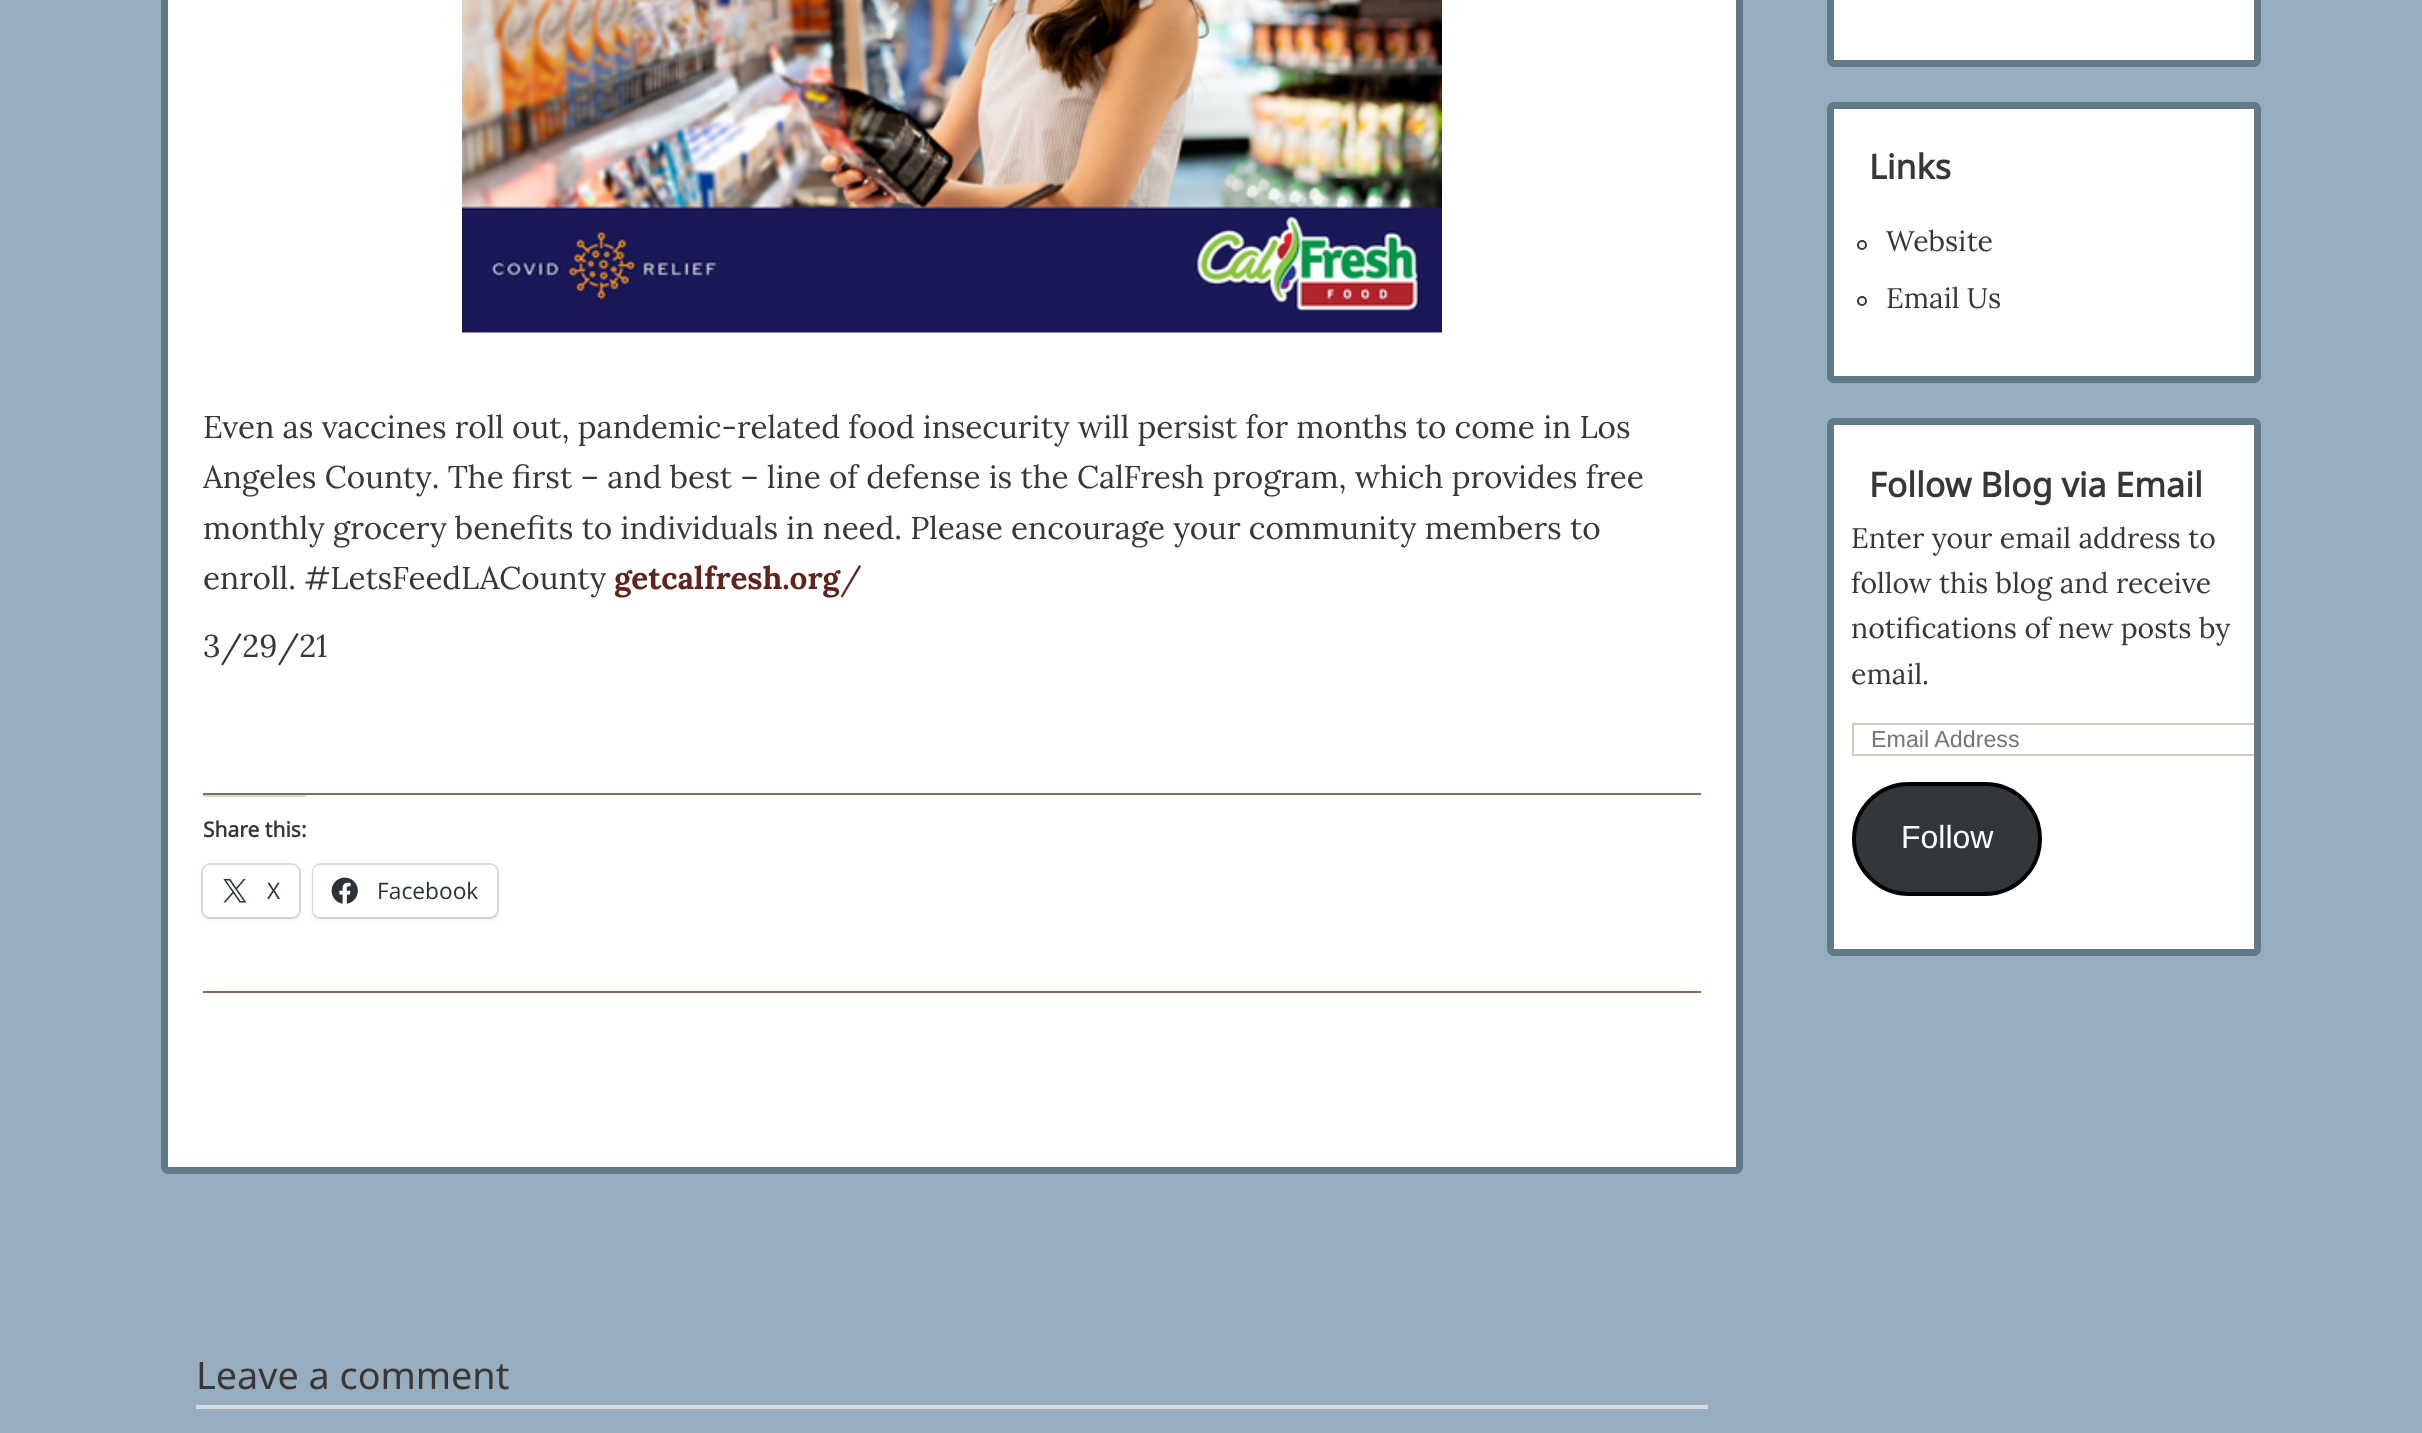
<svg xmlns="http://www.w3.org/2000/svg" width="2422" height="1433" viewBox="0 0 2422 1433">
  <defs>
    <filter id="blur1" x="-50%" y="-200%" width="200%" height="500%"><feGaussianBlur stdDeviation="2"/></filter>
    <clipPath id="clip1"><rect x="1834" y="425" width="420" height="524"/></clipPath>
  </defs>
  <rect width="100%" height="100%" fill="#98adbd"/>
  <rect x="164.5" y="-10.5" width="1575" height="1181" rx="3.5" fill="#ffffff" stroke="#617a88" stroke-width="7"/>
  <image x="462" y="0" width="980" height="333" href="img1.png"/>
  <text x="203" y="438" font-family="Lora" font-size="31.5" fill="#393637">Even as vaccines roll out, pandemic-related food insecurity will persist for months to come in Los</text>
  <text x="203" y="488" font-family="Lora" font-size="31.5" fill="#393637">Angeles County. The first – and best – line of defense is the CalFresh program, which provides free</text>
  <text x="203" y="539" font-family="Lora" font-size="31.5" fill="#393637">monthly grocery benefits to individuals in need. Please encourage your community members to</text>
  <text x="203" y="589" font-family="Lora" font-size="31.5" fill="#393637">enroll. #LetsFeedLACounty</text>
  <text x="614" y="589" font-family="Lora" font-size="31.5" font-weight="bold" fill="#60241e">getcalfresh.org</text>
  <text x="840" y="589" font-family="Lora" font-size="31.5" fill="#60241e">/</text>
  <text x="203" y="657" font-family="Lora" font-size="31.5" fill="#393637">3/29/21</text>
  <rect x="203" y="793" width="1498" height="2" fill="#837052"/>
  <rect x="203" y="795" width="103" height="2" fill="#dcdcde"/>
  <text x="203" y="837" font-family="Noto Sans" font-size="21" font-weight="bold" fill="#393637">Share this:</text>
  <rect x="202" y="864" width="98" height="54" rx="8" fill="none" stroke="#e0e0e0" stroke-width="2"/>
  <rect x="203" y="866" width="96" height="53" rx="7" fill="#000000" fill-opacity="0.12" filter="url(#blur1)"/>
  <rect x="203" y="865" width="96" height="52" rx="7" fill="#ffffff"/>
  <image x="223" y="878" width="24" height="25" href="img2.png"/>
  <text x="267" y="899" font-family="Open Sans" font-size="22.75" fill="#2c3338">X</text>
  <rect x="313" y="864" width="185" height="54" rx="8" fill="none" stroke="#e0e0e0" stroke-width="2"/>
  <rect x="313" y="866" width="184" height="53" rx="7" fill="#000000" fill-opacity="0.12" filter="url(#blur1)"/>
  <rect x="313" y="865" width="184" height="52" rx="7" fill="#ffffff"/>
  <image x="331" y="877" width="27" height="27" href="img3.png"/>
  <text x="377" y="899" font-family="Open Sans" font-size="22.75" fill="#2c3338">Facebook</text>
  <rect x="203" y="991" width="1498" height="2" fill="#837052"/>
  <text x="196" y="1389" font-family="Noto Sans" font-size="37.75" fill="#393637">Leave a comment</text>
  <rect x="196" y="1405" width="1512" height="4" fill="#dcdcde"/>
  <rect x="1830.5" y="-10.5" width="427" height="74" rx="3.5" fill="#ffffff" stroke="#617a88" stroke-width="7"/>
  <rect x="1830.5" y="105.5" width="427" height="274" rx="3.5" fill="#ffffff" stroke="#617a88" stroke-width="7"/>
  <text x="1869" y="179" font-family="Noto Sans" font-size="34" font-weight="bold" fill="#393637">Links</text>
  <circle cx="1862" cy="245" r="4" fill="none" stroke="#393637" stroke-width="2"/>
  <text x="1886" y="251" font-family="Lora" font-size="28.4" fill="#393637">Website</text>
  <circle cx="1862" cy="301" r="4" fill="none" stroke="#393637" stroke-width="2"/>
  <text x="1886" y="308" font-family="Lora" font-size="28.4" fill="#393637">Email Us</text>
  <rect x="1830.5" y="421.5" width="427" height="531" rx="3.5" fill="#ffffff" stroke="#617a88" stroke-width="7"/>
  <text x="1869" y="497" font-family="Noto Sans" font-size="34" font-weight="bold" fill="#393637">Follow Blog via Email</text>
  <text x="1851" y="548" font-family="Lora" font-size="28.4" fill="#393637">Enter your email address to</text>
  <text x="1851" y="593" font-family="Lora" font-size="28.4" fill="#393637">follow this blog and receive</text>
  <text x="1851" y="638" font-family="Lora" font-size="28.4" fill="#393637">notifications of new posts by</text>
  <text x="1851" y="684" font-family="Lora" font-size="28.4" fill="#393637">email.</text>
  <g clip-path="url(#clip1)">
    <rect x="1853" y="724" width="402" height="31" fill="none" stroke="#d3ccc1" stroke-width="2"/>
  </g>
  <text x="1871" y="747" font-family="Liberation Sans" font-size="23.25" fill="#757575">Email Address</text>
  <rect x="1854" y="784" width="186" height="110" rx="55" fill="#32373c" stroke="#000000" stroke-width="4"/>
  <text x="1901" y="848" font-family="Liberation Sans" font-size="32" fill="#ffffff">Follow</text>
</svg>
